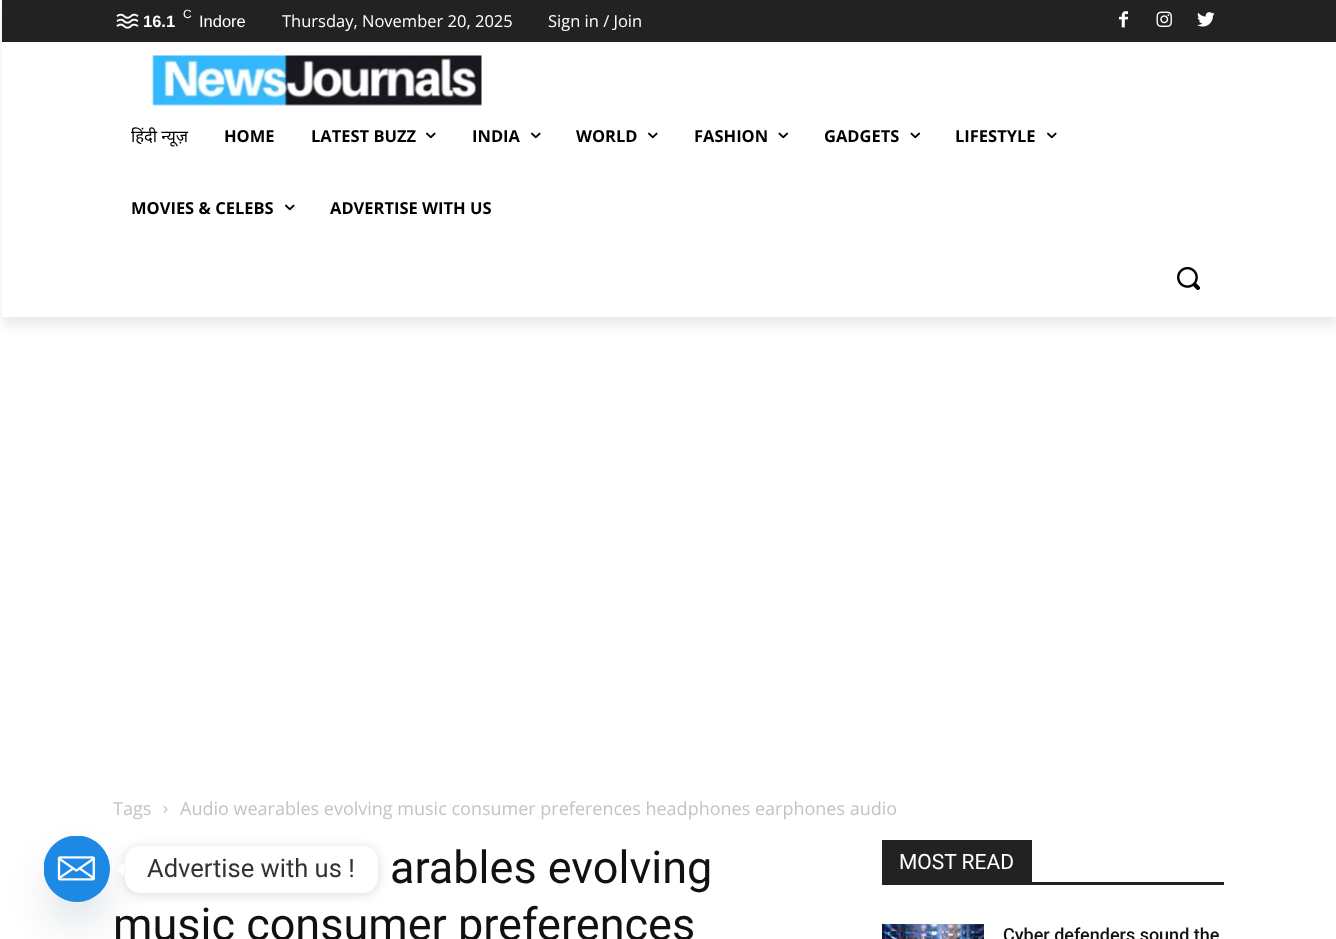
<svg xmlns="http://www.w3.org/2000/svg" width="1336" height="939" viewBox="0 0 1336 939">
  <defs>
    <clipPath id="clip1"><path d="M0 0H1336V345H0ZM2 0H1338V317H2Z" clip-rule="evenodd"/></clipPath>
    <filter id="blur1" x="-50%" y="-200%" width="200%" height="500%"><feGaussianBlur stdDeviation="6"/></filter>
    <filter id="blur2" x="-50%" y="-200%" width="200%" height="500%"><feGaussianBlur stdDeviation="18"/></filter>
  </defs>
  <rect width="100%" height="100%" fill="#ffffff"/>
  <rect x="2" y="0" width="1334" height="42" fill="#222222"/>
  <image x="116" y="13" width="23" height="16" href="img1.png"/>
  <image x="1119" y="11" width="9" height="17" href="img2.png"/>
  <image x="1156" y="11" width="16" height="16" href="img3.png"/>
  <image x="1197" y="12" width="18" height="15" href="img4.png"/>
  <image x="152" y="55" width="330" height="51" href="img5.png"/>
  <g clip-path="url(#clip1)">
    <rect x="2" y="9" width="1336" height="317" fill="#000000" fill-opacity="0.08" filter="url(#blur1)"/>
  </g>
  <text x="183" y="18" font-family="Liberation Sans" font-size="12" fill="#ffffff">C</text>
  <text x="143" y="27" font-family="Liberation Sans" font-size="16.5" font-weight="bold" fill="#ffffff">16.1</text>
  <text x="199" y="27" font-family="Liberation Sans" font-size="16.5" fill="#ffffff">Indore</text>
  <text x="282" y="27" font-family="Open Sans" font-size="16.5" fill="#ffffff">Thursday, November 20, 2025</text>
  <text x="548" y="27" font-family="Open Sans" font-size="16.5" fill="#ffffff">Sign in / Join</text>
  <text x="131" y="142" font-family="Noto Sans" font-size="16.5" fill="#000000">हिंदी न्यूज़</text>
  <text x="224" y="142" font-family="Open Sans" font-size="16.5" font-weight="bold" fill="#000000">HOME</text>
  <text x="311" y="142" font-family="Open Sans" font-size="16.5" font-weight="bold" fill="#000000">LATEST BUZZ</text>
  <image x="426" y="132" width="10" height="7" href="img6.png"/>
  <text x="472" y="142" font-family="Open Sans" font-size="16.5" font-weight="bold" fill="#000000">INDIA</text>
  <image x="531" y="132" width="10" height="7" href="img6.png"/>
  <text x="576" y="142" font-family="Open Sans" font-size="16.5" font-weight="bold" fill="#000000">WORLD</text>
  <image x="648" y="132" width="10" height="7" href="img6.png"/>
  <text x="694" y="142" font-family="Open Sans" font-size="16.5" font-weight="bold" fill="#000000">FASHION</text>
  <image x="778" y="132" width="10" height="7" href="img7.png"/>
  <text x="824" y="142" font-family="Open Sans" font-size="16.5" font-weight="bold" fill="#000000">GADGETS</text>
  <image x="910" y="132" width="10" height="7" href="img7.png"/>
  <text x="955" y="142" font-family="Open Sans" font-size="16.5" font-weight="bold" fill="#000000">LIFESTYLE</text>
  <image x="1047" y="132" width="10" height="7" href="img6.png"/>
  <text x="131" y="214" font-family="Open Sans" font-size="16.5" font-weight="bold" fill="#000000">MOVIES &amp; CELEBS</text>
  <image x="285" y="204" width="10" height="7" href="img6.png"/>
  <text x="330" y="214" font-family="Open Sans" font-size="16.5" font-weight="bold" fill="#000000">ADVERTISE WITH US</text>
  <image x="1177" y="267" width="24" height="23" href="img8.png"/>
  <text x="113" y="815" font-family="Open Sans" font-size="18" fill="#c3c3c3">Tags</text>
  <image x="163" y="806" width="5" height="7" href="img9.png"/>
  <text x="180" y="815" font-family="Open Sans" font-size="18" fill="#c3c3c3">Audio wearables evolving music consumer preferences headphones earphones audio</text>
  <text x="390" y="883" font-family="Roboto" font-size="45" fill="#111111">arables evolving</text>
  <text x="113" y="940" font-family="Roboto" font-size="45" fill="#111111">music consumer preferences</text>
  <rect x="882" y="882" width="342" height="3" fill="#222222"/>
  <rect x="882" y="840" width="150" height="42" fill="#222222"/>
  <text x="899" y="869" font-family="Roboto" font-size="21" fill="#ffffff">MOST READ</text>
  <image x="882" y="924" width="102" height="15" href="img10.png"/>
  <text x="1003" y="941" font-family="Roboto" font-size="18" font-weight="500" fill="#111111">Cyber defenders sound the</text>
  <rect x="44" y="860" width="66" height="66" rx="33" fill="#49687e" fill-opacity="0.16" filter="url(#blur2)"/>
  <circle cx="77" cy="869" r="33" fill="#1e88e5"/>
  <image x="44" y="836" width="66" height="66" href="img11.png"/>
  <rect x="125" y="848" width="253" height="46" rx="15" fill="#000000" fill-opacity="0.15" filter="url(#blur1)"/>
  <rect x="125" y="846" width="253" height="47" rx="15" fill="#ffffff"/>
  <path d="M124.5 862V877L117 869Z" fill="#ffffff"/>
  <text x="147" y="877" font-family="Roboto" font-size="25.5" fill="#333333">Advertise with us !</text>
</svg>
